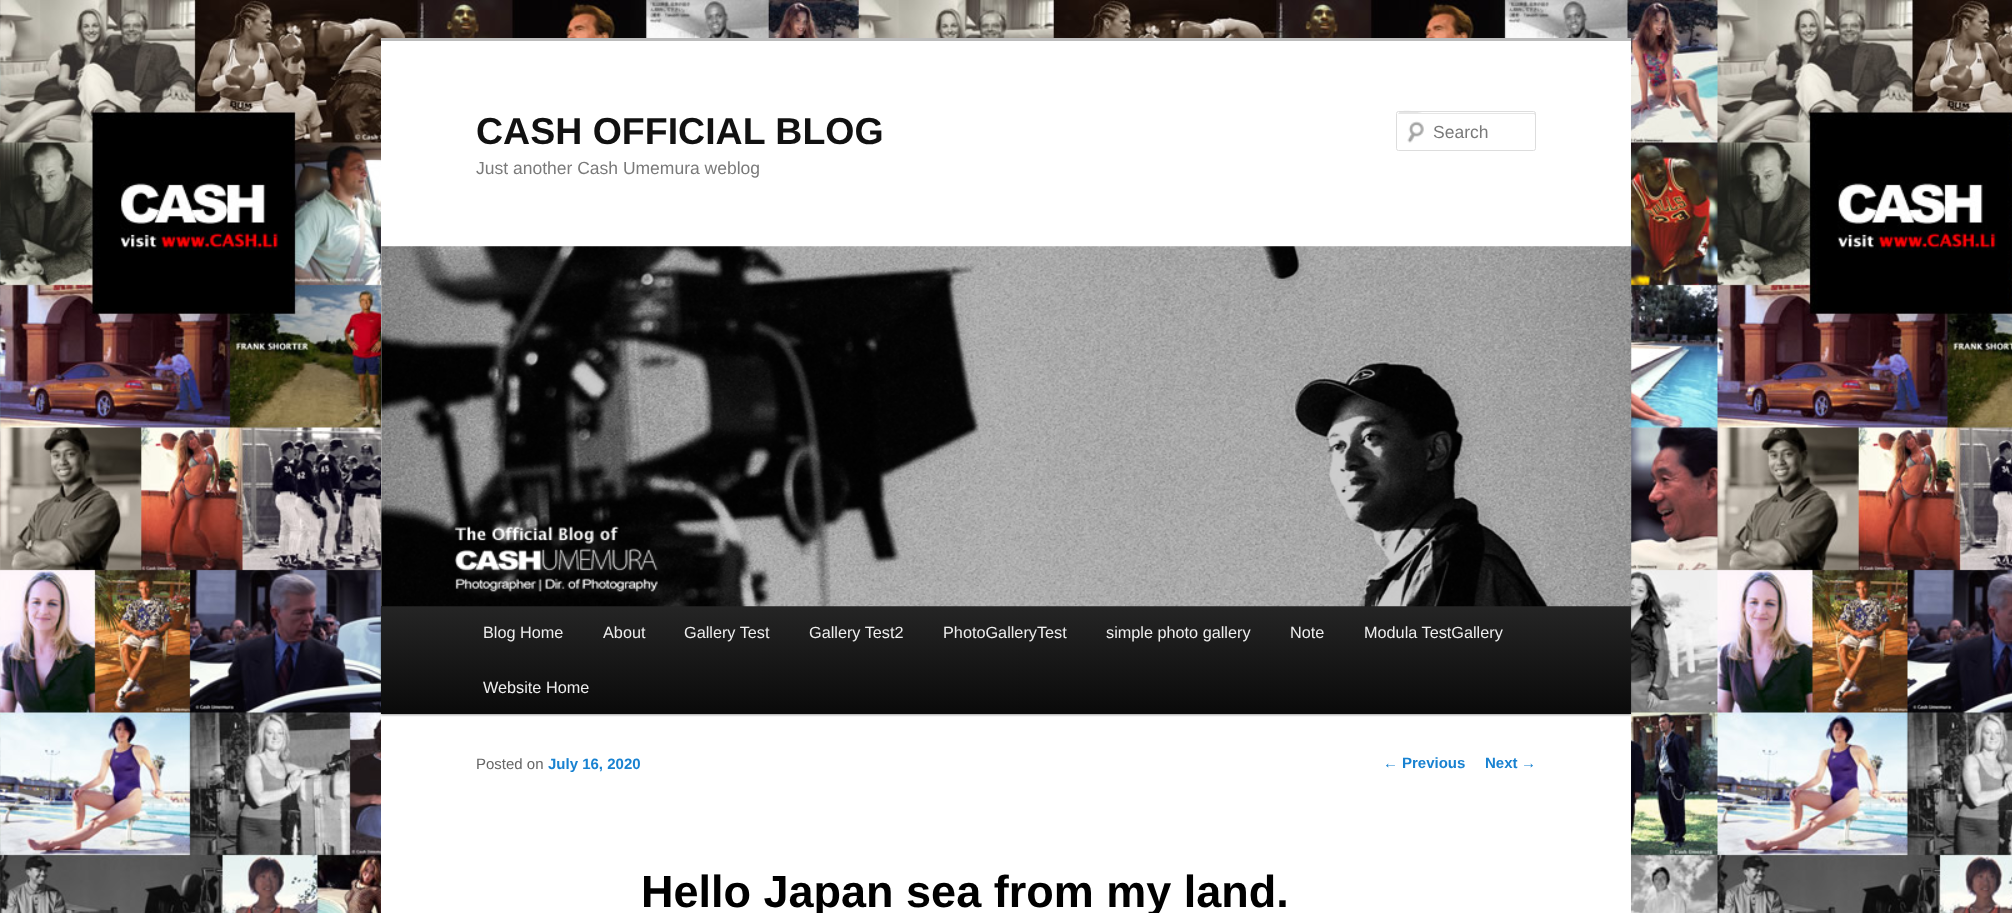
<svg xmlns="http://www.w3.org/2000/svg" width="2012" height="913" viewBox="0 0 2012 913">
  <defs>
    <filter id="blur1" x="-50%" y="-200%" width="200%" height="500%"><feGaussianBlur stdDeviation="1"/></filter>
    <linearGradient id="g1" gradientUnits="userSpaceOnUse" x1="1006" y1="606" x2="1006" y2="714"><stop offset="0" stop-color="#252525"/><stop offset="1" stop-color="#0a0a0a"/></linearGradient>
  </defs>
  <rect width="100%" height="100%" fill="#ffffff"/>
  <image x="0" y="0" width="2012" height="913" href="img1.png"/>
  <rect x="381" y="41" width="1250" height="872" fill="#ffffff"/>
  <rect x="381" y="38" width="1250" height="3" fill="#bbbbbb"/>
  <text x="476" y="144" font-family="Liberation Sans" font-size="37.5" font-weight="bold" fill="#111111">CASH OFFICIAL BLOG</text>
  <text x="476" y="174" font-family="Liberation Sans" font-size="17.5" fill="#7a7a7a">Just another Cash Umemura weblog</text>
  <image x="1407" y="121" width="17" height="22" href="img2.png"/>
  <path d="M1399 114H1534L1535 115V113H1422C1421 113 1398 107 1398 115C1398 114 1398 114 1399 114Z" fill="#e6e6e6"/>
  <rect x="1396.5" y="111.5" width="139" height="39" rx="2" fill="none" stroke="#dddddd"/>
  <text x="1433" y="138" font-family="Liberation Sans" font-size="17.5" fill="#7a7a7a">Search</text>
  <rect x="381" y="608" width="1250" height="107" fill="#000000" fill-opacity="0.4" filter="url(#blur1)"/>
  <rect x="381" y="606" width="1250" height="108" fill="url(#g1)"/>
  <image x="381" y="246" width="1251" height="361" href="img3.png"/>
  <text x="483" y="638" font-family="Liberation Sans" font-size="16.25" fill="#eeeeee">Blog Home</text>
  <text x="603" y="638" font-family="Liberation Sans" font-size="16.25" fill="#eeeeee">About</text>
  <text x="684" y="638" font-family="Liberation Sans" font-size="16.25" fill="#eeeeee">Gallery Test</text>
  <text x="809" y="638" font-family="Liberation Sans" font-size="16.25" fill="#eeeeee">Gallery Test2</text>
  <text x="943" y="638" font-family="Liberation Sans" font-size="16.25" fill="#eeeeee">PhotoGalleryTest</text>
  <text x="1106" y="638" font-family="Liberation Sans" font-size="16.25" fill="#eeeeee">simple photo gallery</text>
  <text x="1290" y="638" font-family="Liberation Sans" font-size="16.25" fill="#eeeeee">Note</text>
  <text x="1364" y="638" font-family="Liberation Sans" font-size="16.25" fill="#eeeeee">Modula TestGallery</text>
  <text x="483" y="693" font-family="Liberation Sans" font-size="16.25" fill="#eeeeee">Website Home</text>
  <text x="476" y="769" font-family="Liberation Sans" font-size="15" fill="#666666">Posted on</text>
  <text x="548" y="769" font-family="Liberation Sans" font-size="15" font-weight="bold" fill="#1982d1">July 16, 2020</text>
  <text x="641" y="907" font-family="Liberation Sans" font-size="45" font-weight="bold" fill="#000000">Hello Japan sea from my land.</text>
  <text x="1383" y="768" font-family="Liberation Sans" font-size="15" fill="#1982d1">←</text>
  <text x="1402" y="768" font-family="Liberation Sans" font-size="15" font-weight="bold" fill="#1982d1">Previous</text>
  <text x="1485" y="768" font-family="Liberation Sans" font-size="15" font-weight="bold" fill="#1982d1">Next</text>
  <text x="1521" y="768" font-family="Liberation Sans" font-size="15" fill="#1982d1">→</text>
</svg>
